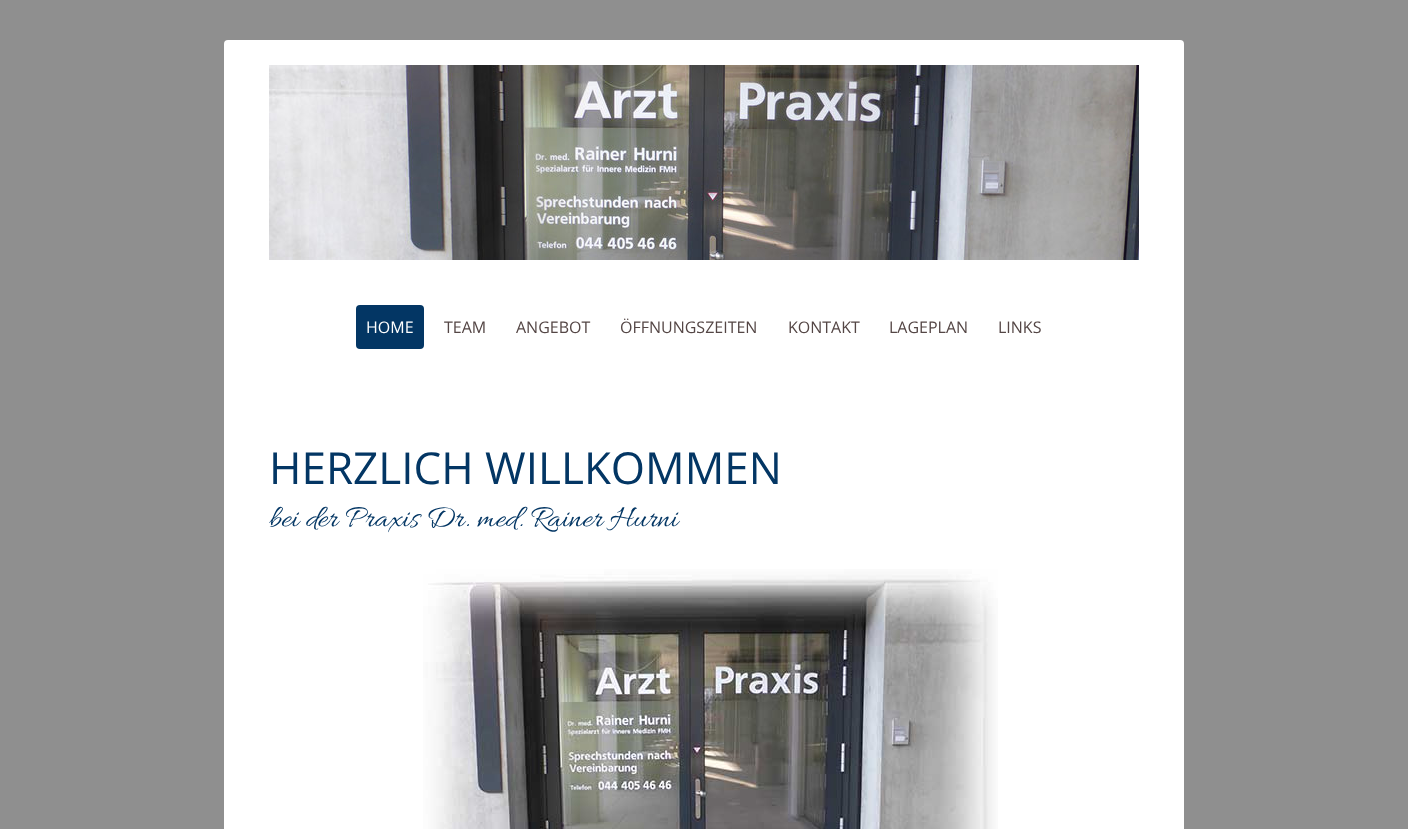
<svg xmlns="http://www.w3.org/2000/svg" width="1408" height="829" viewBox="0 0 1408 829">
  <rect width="100%" height="100%" fill="#8f8f8f"/>
  <rect x="224" y="40" width="960" height="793" rx="4" fill="#ffffff"/>
  <image x="269" y="65" width="870" height="195" href="img1.png"/>
  <rect x="356" y="305" width="68" height="44" rx="4" fill="#033664"/>
  <text x="366" y="333" font-family="Open Sans" font-size="16" fill="#ffffff">HOME</text>
  <text x="444" y="333" font-family="Open Sans" font-size="16" fill="#544645">TEAM</text>
  <text x="516" y="333" font-family="Open Sans" font-size="16" fill="#544645">ANGEBOT</text>
  <text x="620" y="333" font-family="Open Sans" font-size="16" fill="#544645">ÖFFNUNGSZEITEN</text>
  <text x="788" y="333" font-family="Open Sans" font-size="16" fill="#544645">KONTAKT</text>
  <text x="889" y="333" font-family="Open Sans" font-size="16" fill="#544645">LAGEPLAN</text>
  <text x="998" y="333" font-family="Open Sans" font-size="16" fill="#544645">LINKS</text>
  <text x="269" y="484" font-family="Open Sans" font-size="44" fill="#033664">HERZLICH WILLKOMMEN</text>
  <text x="269" y="526" font-family="Allura" font-size="32" fill="#033664">bei der Praxis Dr. med. Rainer Hurni</text>
  <image x="423" y="569" width="575" height="260" href="img2.png"/>
</svg>
